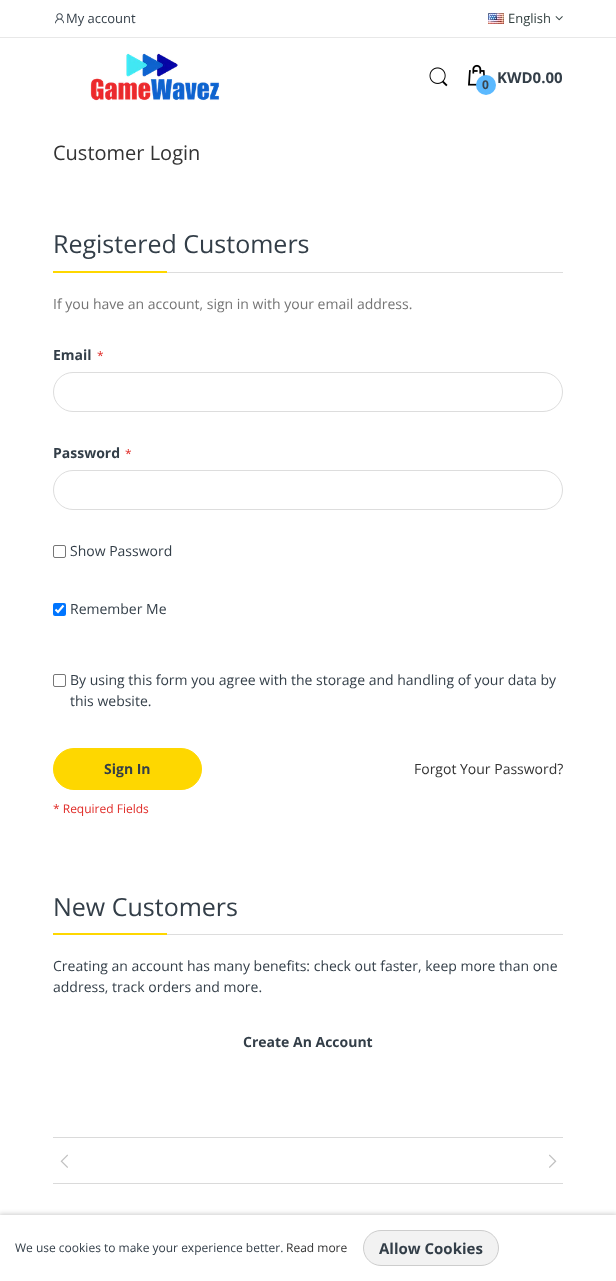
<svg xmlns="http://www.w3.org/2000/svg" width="616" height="1281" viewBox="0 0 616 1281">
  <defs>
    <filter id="blur1" x="-50%" y="-200%" width="200%" height="500%"><feGaussianBlur stdDeviation="2.5"/></filter>
  </defs>
  <rect width="100%" height="100%" fill="#ffffff"/>
  <rect x="0" y="37" width="616" height="1" fill="#e8e8e8"/>
  <image x="55" y="13" width="9" height="11" href="img1.png"/>
  <text x="66" y="23" font-family="Open Sans" font-size="13" fill="#333e48">My account</text>
  <image x="488" y="13" width="16" height="11" href="img2.png"/>
  <text x="508" y="23" font-family="Open Sans" font-size="13" fill="#334141">English</text>
  <image x="555" y="16" width="8" height="5" href="img3.png"/>
  <image x="90" y="53" width="130" height="48" href="img4.png"/>
  <image x="429" y="67" width="19" height="20" href="img5.png"/>
  <text x="497" y="83" font-family="Open Sans" font-size="15" font-weight="bold" fill="#333e48">KWD0.00</text>
  <image x="468" y="64" width="17" height="22" href="img6.png"/>
  <circle cx="486" cy="85" r="10" fill="#5bb9ff"/>
  <text x="482" y="89" font-family="Open Sans" font-size="12" font-weight="bold" fill="#3a454e">0</text>
  <text x="53" y="160" font-family="Open Sans" font-size="20" fill="#333333">Customer Login</text>
  <rect x="167" y="272" width="396" height="1" fill="#dddddd"/>
  <text x="53" y="253" font-family="Open Sans" font-size="25" fill="#333e48">Registered Customers</text>
  <rect x="53" y="271" width="114" height="2" fill="#fed700"/>
  <text x="53" y="309" font-family="Open Sans" font-size="14" fill="#747474">If you have an account, sign in with your email address.</text>
  <text x="53" y="360" font-family="Open Sans" font-size="14" font-weight="bold" fill="#333e48">Email</text>
  <text x="97" y="360" font-family="Open Sans" font-size="12" fill="#e02b27">*</text>
  <rect x="53.5" y="372.5" width="509" height="39" rx="19.5" fill="none" stroke="#dddddd"/>
  <text x="53" y="458" font-family="Open Sans" font-size="14" font-weight="bold" fill="#333e48">Password</text>
  <text x="125" y="458" font-family="Open Sans" font-size="12" fill="#e02b27">*</text>
  <rect x="53.5" y="470.5" width="509" height="39" rx="19.5" fill="none" stroke="#dddddd"/>
  <rect x="53.5" y="545.5" width="12" height="12" rx="1.5" fill="none" stroke="#767676"/>
  <text x="70" y="556" font-family="Open Sans" font-size="14" fill="#333e48">Show Password</text>
  <rect x="53" y="603" width="13" height="13" rx="2" fill="#0075ff"/>
  <path d="M55.5 609.5L58 612L63.5 605.5" fill="none" stroke="#ffffff" stroke-width="2.1"/>
  <text x="70" y="614" font-family="Open Sans" font-size="14" fill="#333e48">Remember Me</text>
  <rect x="53.5" y="674.5" width="12" height="12" rx="1.5" fill="none" stroke="#767676"/>
  <text x="70" y="685" font-family="Open Sans" font-size="14" fill="#333e48">By using this form you agree with the storage and handling of your data by</text>
  <text x="70" y="706" font-family="Open Sans" font-size="14" fill="#333e48">this website.</text>
  <rect x="53.5" y="748.5" width="148" height="41" rx="20.5" fill="#fed700" stroke="#fed700"/>
  <text x="104" y="774" font-family="Open Sans" font-size="14" font-weight="bold" fill="#333e48">Sign In</text>
  <text x="414" y="774" font-family="Open Sans" font-size="14" fill="#333333">Forgot Your Password?</text>
  <text x="53" y="813" font-family="Open Sans" font-size="12" fill="#e02b27">* Required Fields</text>
  <rect x="167" y="934" width="396" height="1" fill="#dddddd"/>
  <text x="53" y="916" font-family="Open Sans" font-size="25" fill="#333e48">New Customers</text>
  <rect x="53" y="933" width="114" height="2" fill="#fed700"/>
  <text x="53" y="971" font-family="Open Sans" font-size="14" fill="#333e48">Creating an account has many benefits: check out faster, keep more than one</text>
  <text x="53" y="992" font-family="Open Sans" font-size="14" fill="#333e48">address, track orders and more.</text>
  <text x="243" y="1047" font-family="Open Sans" font-size="14" font-weight="bold" fill="#333e48">Create An Account</text>
  <rect x="53" y="1137" width="510" height="1" fill="#dadada"/>
  <rect x="53" y="1183" width="510" height="1" fill="#dadada"/>
  <image x="60" y="1154" width="8" height="14" href="img7.png"/>
  <image x="549" y="1154" width="8" height="14" href="img8.png"/>
  <rect x="-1" y="1214" width="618" height="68" fill="#000000" fill-opacity="0.2" filter="url(#blur1)"/>
  <rect x="0" y="1215" width="616" height="66" fill="#ffffff"/>
  <text x="15" y="1252" font-family="Open Sans" font-size="12" fill="#333e48">We use cookies to make your experience better.</text>
  <text x="286" y="1252" font-family="Open Sans" font-size="12" fill="#333333">Read more</text>
  <rect x="363.5" y="1230.5" width="135" height="35" rx="17.5" fill="#f2f2f2" stroke="#cdcdcd"/>
  <text x="379" y="1254" font-family="Open Sans" font-size="15" font-weight="bold" fill="#333e48">Allow Cookies</text>
</svg>
